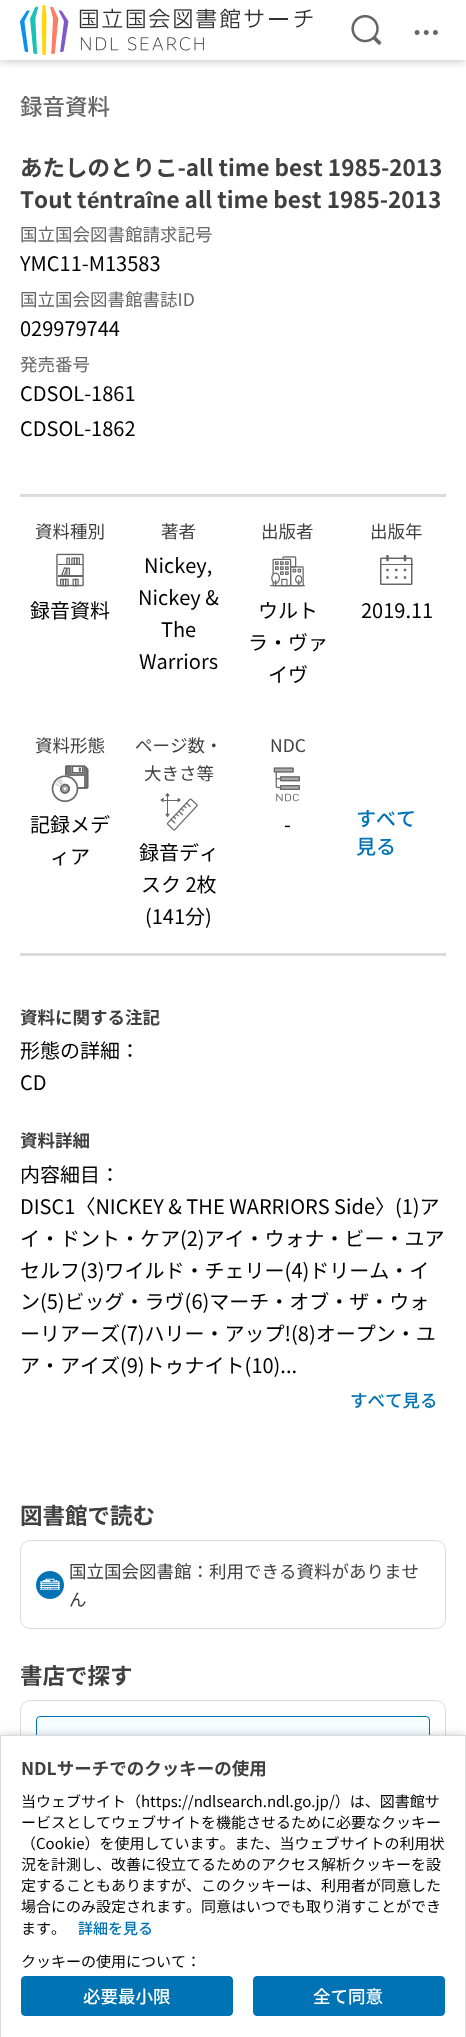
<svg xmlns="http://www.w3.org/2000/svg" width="466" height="2037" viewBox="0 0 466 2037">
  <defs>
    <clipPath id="clip1"><rect x="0" y="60" width="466" height="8"/></clipPath>
    <filter id="blur1" x="-50%" y="-200%" width="200%" height="500%"><feGaussianBlur stdDeviation="5"/></filter>
  </defs>
  <rect width="100%" height="100%" fill="#ffffff"/>
  <g clip-path="url(#clip1)">
    <rect x="0" y="1" width="466" height="60" fill="#000000" fill-opacity="0.24" filter="url(#blur1)"/>
  </g>
  <image x="20" y="5" width="293" height="50" href="img1.png"/>
  <image x="351" y="14" width="31" height="31" href="img2.png"/>
  <image x="414" y="30" width="24" height="5" href="img3.png"/>
  <text x="20" y="115" font-family="Noto Sans JP" font-size="22.5" font-weight="500" fill="#666666">録音資料</text>
  <text x="20" y="176" font-family="Noto Sans JP" font-size="22.5" font-weight="bold" fill="#404040">あたしのとりこ-all time best 1985-2013</text>
  <text x="20" y="208" font-family="Noto Sans JP" font-size="22.5" font-weight="bold" fill="#404040">Tout t</text>
  <text x="87" y="208" font-family="Liberation Sans" font-size="22.5" font-weight="bold" fill="#404040">é</text>
  <text x="99" y="208" font-family="Noto Sans JP" font-size="22.5" font-weight="bold" fill="#404040">ntra</text>
  <text x="146" y="208" font-family="Liberation Sans" font-size="22.5" font-weight="bold" fill="#404040">î</text>
  <text x="152" y="208" font-family="Noto Sans JP" font-size="22.5" font-weight="bold" fill="#404040">ne all time best 1985-2013</text>
  <text x="20" y="241" font-family="Noto Sans JP" font-size="17.5" fill="#666666">国立国会図書館請求記号</text>
  <text x="20" y="271" font-family="Noto Sans JP" font-size="20" fill="#000000">YMC11-M13583</text>
  <text x="20" y="306" font-family="Noto Sans JP" font-size="17.5" fill="#666666">国立国会図書館書誌ID</text>
  <text x="20" y="336" font-family="Noto Sans JP" font-size="20" fill="#000000">029979744</text>
  <text x="20" y="371" font-family="Noto Sans JP" font-size="17.5" fill="#666666">発売番号</text>
  <text x="20" y="401" font-family="Noto Sans JP" font-size="20" fill="#000000">CDSOL-1861</text>
  <text x="20" y="436" font-family="Noto Sans JP" font-size="20" fill="#000000">CDSOL-1862</text>
  <rect x="20" y="494" width="426" height="3" fill="#dbdbdb"/>
  <text x="35" y="538" font-family="Noto Sans JP" font-size="17.5" fill="#404040">資料種別</text>
  <image x="56" y="553" width="28" height="34" href="img4.png"/>
  <text x="30" y="618" font-family="Noto Sans JP" font-size="20" fill="#000000">録音資料</text>
  <text x="161" y="538" font-family="Noto Sans JP" font-size="17.5" fill="#404040">著者</text>
  <text x="144" y="573" font-family="Noto Sans JP" font-size="20" fill="#000000">Nickey,</text>
  <text x="138" y="605" font-family="Noto Sans JP" font-size="20" fill="#000000">Nickey &amp;</text>
  <text x="161" y="637" font-family="Noto Sans JP" font-size="20" fill="#000000">The</text>
  <text x="139" y="669" font-family="Noto Sans JP" font-size="20" fill="#000000">Warriors</text>
  <text x="261" y="538" font-family="Noto Sans JP" font-size="17.5" fill="#404040">出版者</text>
  <image x="270" y="556" width="35" height="31" href="img5.png"/>
  <text x="258" y="618" font-family="Noto Sans JP" font-size="20" fill="#000000">ウルト</text>
  <text x="248" y="650" font-family="Noto Sans JP" font-size="20" fill="#000000">ラ・ヴァ</text>
  <text x="268" y="682" font-family="Noto Sans JP" font-size="20" fill="#000000">イヴ</text>
  <text x="370" y="538" font-family="Noto Sans JP" font-size="17.5" fill="#404040">出版年</text>
  <image x="380" y="555" width="33" height="30" href="img6.png"/>
  <text x="361" y="618" font-family="Noto Sans JP" font-size="20" fill="#000000">2019.11</text>
  <text x="35" y="752" font-family="Noto Sans JP" font-size="17.5" fill="#404040">資料形態</text>
  <image x="51" y="765" width="38" height="38" href="img7.png"/>
  <text x="30" y="832" font-family="Noto Sans JP" font-size="20" fill="#000000">記録メデ</text>
  <text x="50" y="864" font-family="Noto Sans JP" font-size="20" fill="#000000">ィア</text>
  <text x="135" y="752" font-family="Noto Sans JP" font-size="17.5" fill="#404040">ページ数・</text>
  <text x="144" y="780" font-family="Noto Sans JP" font-size="17.5" fill="#404040">大きさ等</text>
  <image x="160" y="793" width="38" height="38" href="img8.png"/>
  <text x="139" y="860" font-family="Noto Sans JP" font-size="20" fill="#000000">録音ディ</text>
  <text x="141" y="892" font-family="Noto Sans JP" font-size="20" fill="#000000">スク 2枚</text>
  <text x="145" y="924" font-family="Noto Sans JP" font-size="20" fill="#000000">(141分)</text>
  <text x="270" y="752" font-family="Noto Sans JP" font-size="17.5" fill="#404040">NDC</text>
  <image x="273" y="767" width="27" height="35" href="img9.png"/>
  <text x="284" y="832" font-family="Noto Sans JP" font-size="20" fill="#000000">-</text>
  <text x="356" y="826" font-family="Noto Sans JP" font-size="20" font-weight="500" fill="#0073b5">すべて</text>
  <text x="356" y="854" font-family="Noto Sans JP" font-size="20" font-weight="500" fill="#0073b5">見る</text>
  <rect x="20" y="953" width="426" height="3" fill="#dbdbdb"/>
  <text x="20" y="1024" font-family="Noto Sans JP" font-size="17.5" font-weight="bold" fill="#404040">資料に関する注記</text>
  <text x="20" y="1058" font-family="Noto Sans JP" font-size="20" fill="#000000">形態の詳細：</text>
  <text x="20" y="1090" font-family="Noto Sans JP" font-size="20" fill="#000000">CD</text>
  <text x="20" y="1147" font-family="Noto Sans JP" font-size="17.5" font-weight="bold" fill="#404040">資料詳細</text>
  <text x="20" y="1182" font-family="Noto Sans JP" font-size="20" fill="#000000">内容細目：</text>
  <text x="20" y="1214" font-family="Noto Sans JP" font-size="20" fill="#000000">DISC1〈NICKEY &amp; THE WARRIORS Side〉(1)ア</text>
  <text x="20" y="1246" font-family="Noto Sans JP" font-size="20" fill="#000000">イ・ドント・ケア(2)アイ・ウォナ・ビー・ユア</text>
  <text x="20" y="1278" font-family="Noto Sans JP" font-size="20" fill="#000000">セルフ(3)ワイルド・チェリー(4)ドリーム・イ</text>
  <text x="20" y="1309" font-family="Noto Sans JP" font-size="20" fill="#000000">ン(5)ビッグ・ラヴ(6)マーチ・オブ・ザ・ウォ</text>
  <text x="20" y="1341" font-family="Noto Sans JP" font-size="20" fill="#000000">ーリアーズ(7)ハリー・アップ!(8)オープン・ユ</text>
  <text x="20" y="1373" font-family="Noto Sans JP" font-size="20" fill="#000000">ア・アイズ(9)トゥナイト(10)...</text>
  <text x="350" y="1407" font-family="Noto Sans JP" font-size="17.5" font-weight="500" fill="#0073b5">すべて見る</text>
  <text x="20" y="1524" font-family="Noto Sans JP" font-size="22.5" font-weight="bold" fill="#404040">図書館で読む</text>
  <rect x="20.5" y="1540.5" width="425" height="88" rx="9.5" fill="none" stroke="#dbdbdb"/>
  <image x="36" y="1571" width="28" height="28" href="img10.png"/>
  <text x="69" y="1578" font-family="Noto Sans JP" font-size="17.5" fill="#404040">国立国会図書館：利用できる資料がありませ</text>
  <text x="69" y="1606" font-family="Noto Sans JP" font-size="17.5" fill="#404040">ん</text>
  <text x="20" y="1684" font-family="Noto Sans JP" font-size="22.5" font-weight="bold" fill="#404040">書店で探す</text>
  <rect x="20.5" y="1700.5" width="425" height="87" rx="9.5" fill="none" stroke="#dbdbdb"/>
  <rect x="36.5" y="1716.5" width="393" height="54" rx="3.5" fill="#f5fcff" stroke="#0073b5"/>
  <rect x="0" y="1736" width="466" height="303" fill="#000000" fill-opacity="0.24" filter="url(#blur1)"/>
  <rect x="0.5" y="1735.5" width="465" height="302" fill="#ffffff" stroke="#dbdbdb"/>
  <text x="21" y="1775" font-family="Noto Sans JP" font-size="17.5" font-weight="bold" fill="#404040">NDLサーチでのクッキーの使用</text>
  <text x="21" y="1807" font-family="Noto Sans JP" font-size="15" fill="#000000">当ウェブサイト（https://ndlsearch.ndl.go.jp/）は、図書館サ</text>
  <text x="21" y="1828" font-family="Noto Sans JP" font-size="15" fill="#000000">ービスとしてウェブサイトを機能させるために必要なクッキー</text>
  <text x="21" y="1849" font-family="Noto Sans JP" font-size="15" fill="#000000">（Cookie）を使用しています。また、当ウェブサイトの利用状</text>
  <text x="21" y="1870" font-family="Noto Sans JP" font-size="15" fill="#000000">況を計測し、改善に役立てるためのアクセス解析クッキーを設</text>
  <text x="21" y="1891" font-family="Noto Sans JP" font-size="15" fill="#000000">定することもありますが、このクッキーは、利用者が同意した</text>
  <text x="21" y="1912" font-family="Noto Sans JP" font-size="15" fill="#000000">場合にのみ設定されます。同意はいつでも取り消すことができ</text>
  <text x="21" y="1934" font-family="Noto Sans JP" font-size="15" fill="#000000">ます。</text>
  <text x="78" y="1934" font-family="Noto Sans JP" font-size="15" font-weight="500" fill="#0073b5">詳細を見る</text>
  <text x="21" y="1967" font-family="Noto Sans JP" font-size="15" fill="#000000">クッキーの使用について：</text>
  <rect x="21.5" y="1976.5" width="211" height="39" rx="3.5" fill="#0073b5" stroke="#0073b5"/>
  <text x="83" y="2003" font-family="Noto Sans JP" font-size="17.5" font-weight="500" fill="#ffffff">必要最小限</text>
  <rect x="253.5" y="1976.5" width="191" height="39" rx="3.5" fill="#0073b5" stroke="#0073b5"/>
  <text x="313" y="2003" font-family="Noto Sans JP" font-size="17.5" font-weight="500" fill="#ffffff">全て同意</text>
</svg>
